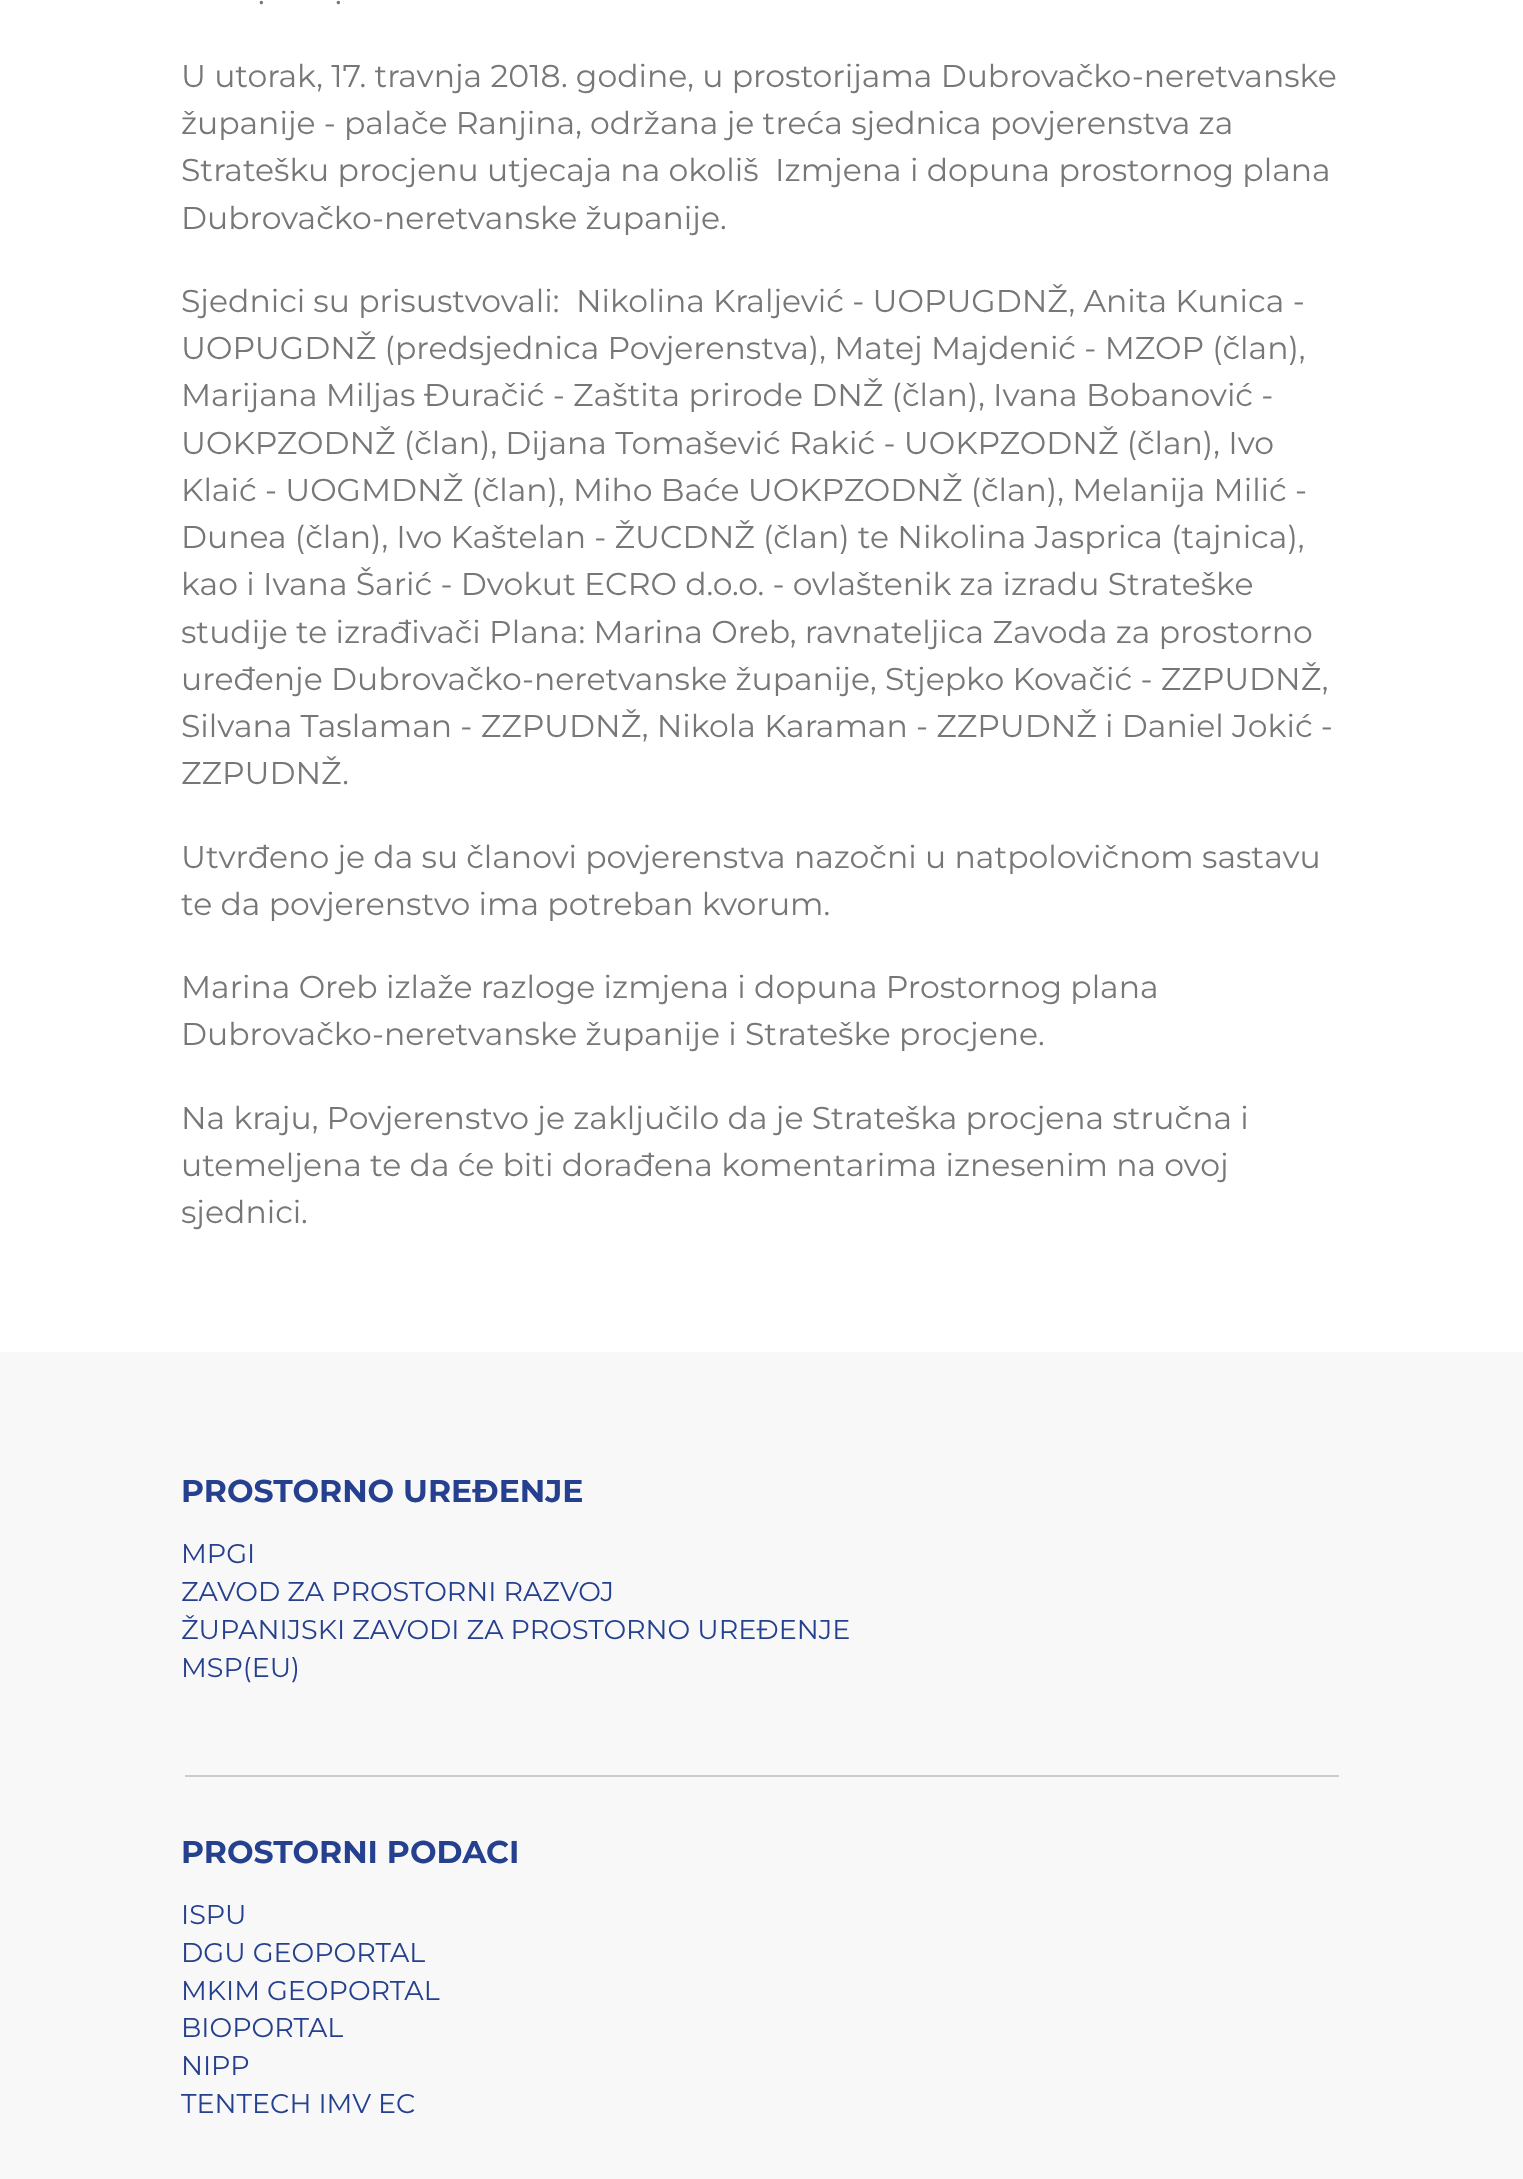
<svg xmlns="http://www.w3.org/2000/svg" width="1523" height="2179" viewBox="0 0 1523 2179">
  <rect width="100%" height="100%" fill="#ffffff"/>
  <text x="258" y="4" font-family="Montserrat" font-size="31.5" fill="#777777">.</text>
  <text x="335" y="4" font-family="Montserrat" font-size="31.5" fill="#777777">.</text>
  <text x="181" y="87" font-family="Montserrat" font-size="31.5" fill="#777777">U utorak, 17. travnja 2018. godine, u prostorijama Dubrovačko-neretvanske</text>
  <text x="181" y="134" font-family="Montserrat" font-size="31.5" fill="#777777">županije - palače Ranjina, održana je treća sjednica povjerenstva za</text>
  <text x="181" y="181" font-family="Montserrat" font-size="31.5" fill="#777777" xml:space="preserve">Stratešku procjenu utjecaja na okoliš  Izmjena i dopuna prostornog plana</text>
  <text x="181" y="229" font-family="Montserrat" font-size="31.5" fill="#777777">Dubrovačko-neretvanske županije.</text>
  <text x="181" y="312" font-family="Montserrat" font-size="31.5" fill="#777777" xml:space="preserve">Sjednici su prisustvovali:  Nikolina Kraljević - UOPUGDNŽ, Anita Kunica -</text>
  <text x="181" y="359" font-family="Montserrat" font-size="31.5" fill="#777777">UOPUGDNŽ (predsjednica Povjerenstva), Matej Majdenić - MZOP (član),</text>
  <text x="181" y="406" font-family="Montserrat" font-size="31.5" fill="#777777">Marijana Miljas Đuračić - Zaštita prirode DNŽ (član), Ivana Bobanović -</text>
  <text x="181" y="454" font-family="Montserrat" font-size="31.5" fill="#777777">UOKPZODNŽ (član), Dijana Tomašević Rakić - UOKPZODNŽ (član), Ivo</text>
  <text x="181" y="501" font-family="Montserrat" font-size="31.5" fill="#777777">Klaić - UOGMDNŽ (član), Miho Baće UOKPZODNŽ (član), Melanija Milić -</text>
  <text x="181" y="548" font-family="Montserrat" font-size="31.5" fill="#777777">Dunea (član), Ivo Kaštelan - ŽUCDNŽ (član) te Nikolina Jasprica (tajnica),</text>
  <text x="181" y="595" font-family="Montserrat" font-size="31.5" fill="#777777">kao i Ivana Šarić - Dvokut ECRO d.o.o. - ovlaštenik za izradu Strateške</text>
  <text x="181" y="643" font-family="Montserrat" font-size="31.5" fill="#777777">studije te izrađivači Plana: Marina Oreb, ravnateljica Zavoda za prostorno</text>
  <text x="181" y="690" font-family="Montserrat" font-size="31.5" fill="#777777">uređenje Dubrovačko-neretvanske županije, Stjepko Kovačić - ZZPUDNŽ,</text>
  <text x="181" y="737" font-family="Montserrat" font-size="31.5" fill="#777777">Silvana Taslaman - ZZPUDNŽ, Nikola Karaman - ZZPUDNŽ i Daniel Jokić -</text>
  <text x="181" y="784" font-family="Montserrat" font-size="31.5" fill="#777777">ZZPUDNŽ.</text>
  <text x="181" y="868" font-family="Montserrat" font-size="31.5" fill="#777777">Utvrđeno je da su članovi povjerenstva nazočni u natpolovičnom sastavu</text>
  <text x="181" y="915" font-family="Montserrat" font-size="31.5" fill="#777777">te da povjerenstvo ima potreban kvorum.</text>
  <text x="181" y="998" font-family="Montserrat" font-size="31.5" fill="#777777">Marina Oreb izlaže razloge izmjena i dopuna Prostornog plana</text>
  <text x="181" y="1045" font-family="Montserrat" font-size="31.5" fill="#777777">Dubrovačko-neretvanske županije i Strateške procjene.</text>
  <text x="181" y="1129" font-family="Montserrat" font-size="31.5" fill="#777777">Na kraju, Povjerenstvo je zaključilo da je Strateška procjena stručna i</text>
  <text x="181" y="1176" font-family="Montserrat" font-size="31.5" fill="#777777">utemeljena te da će biti dorađena komentarima iznesenim na ovoj</text>
  <text x="181" y="1223" font-family="Montserrat" font-size="31.5" fill="#777777">sjednici.</text>
  <rect x="0" y="1352" width="1523" height="827" fill="#f8f8f8"/>
  <text x="181" y="1502" font-family="Montserrat" font-size="31.5" font-weight="bold" fill="#25408f">PROSTORNO UREĐENJE</text>
  <text x="181" y="1563" font-family="Montserrat" font-size="27" fill="#25408f">MPGI</text>
  <text x="181" y="1601" font-family="Montserrat" font-size="27" fill="#25408f">ZAVOD ZA PROSTORNI RAZVOJ</text>
  <text x="181" y="1639" font-family="Montserrat" font-size="27" fill="#25408f">ŽUPANIJSKI ZAVODI ZA PROSTORNO UREĐENJE</text>
  <text x="181" y="1677" font-family="Montserrat" font-size="27" fill="#25408f">MSP(EU)</text>
  <rect x="185" y="1775" width="1154" height="2" fill="#cccccc"/>
  <text x="181" y="1863" font-family="Montserrat" font-size="31.5" font-weight="bold" fill="#25408f">PROSTORNI PODACI</text>
  <text x="181" y="1924" font-family="Montserrat" font-size="27" fill="#25408f">ISPU</text>
  <text x="181" y="1962" font-family="Montserrat" font-size="27" fill="#25408f">DGU GEOPORTAL</text>
  <text x="181" y="2000" font-family="Montserrat" font-size="27" fill="#25408f">MKIM GEOPORTAL</text>
  <text x="181" y="2037" font-family="Montserrat" font-size="27" fill="#25408f">BIOPORTAL</text>
  <text x="181" y="2075" font-family="Montserrat" font-size="27" fill="#25408f">NIPP</text>
  <text x="181" y="2113" font-family="Montserrat" font-size="27" fill="#25408f">TENTECH IMV EC</text>
</svg>
